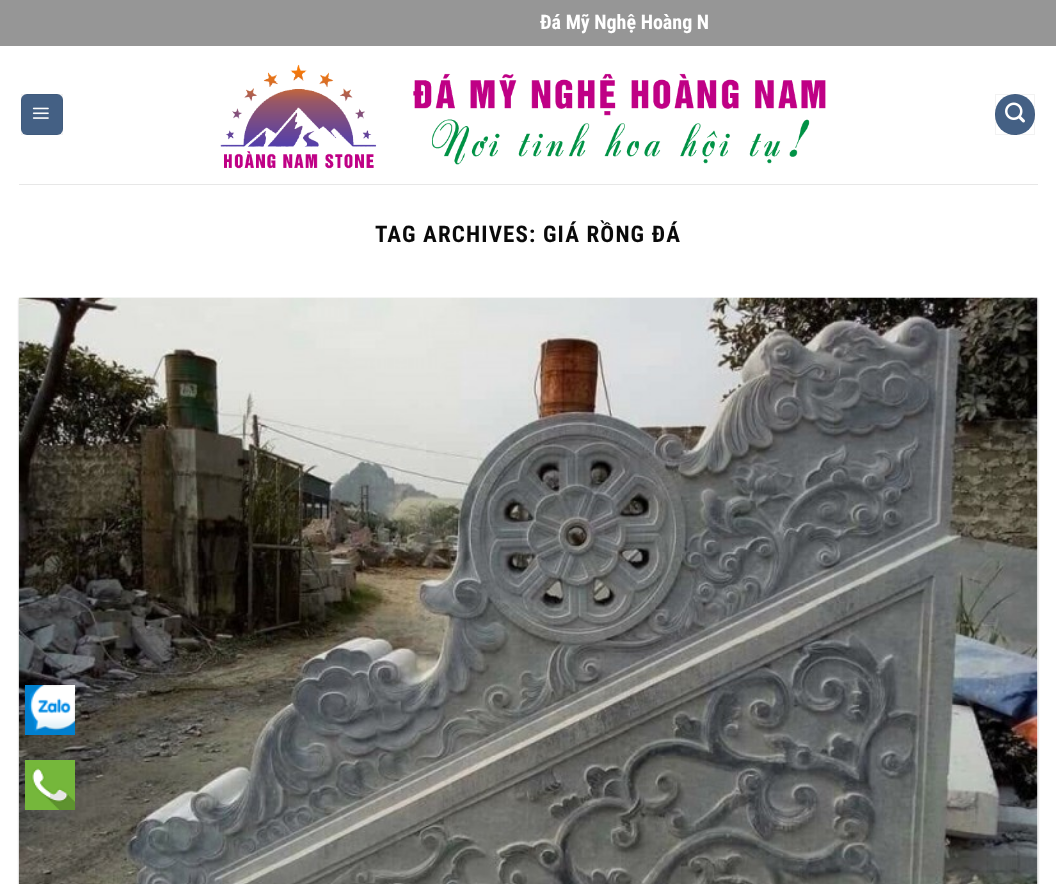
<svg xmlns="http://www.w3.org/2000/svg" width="1056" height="884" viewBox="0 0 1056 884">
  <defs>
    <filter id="blur1" x="-50%" y="-200%" width="200%" height="500%"><feGaussianBlur stdDeviation="1"/></filter>
  </defs>
  <rect width="100%" height="100%" fill="#ffffff"/>
  <rect x="0" y="0" width="1056" height="46" fill="#969696"/>
  <text x="540" y="29" font-family="Roboto Condensed" font-size="20" font-weight="bold" fill="#ffffff">Đá Mỹ Nghệ Hoàng N</text>
  <rect x="21" y="94" width="42" height="41" rx="6" fill="#446084"/>
  <rect x="21.5" y="94.5" width="41" height="40" fill="none" stroke="#000000" stroke-opacity="0.05"/>
  <image x="32" y="107" width="17" height="12" href="img1.png"/>
  <image x="220" y="64" width="606" height="105" href="img2.png"/>
  <rect x="995" y="94" width="40" height="41" rx="20" fill="#446084"/>
  <rect x="995.5" y="94.5" width="39" height="40" fill="none" stroke="#000000" stroke-opacity="0.05"/>
  <image x="1005" y="102" width="20" height="21" href="img3.png"/>
  <rect x="19" y="184" width="1019" height="1" fill="#e7e7e7"/>
  <text x="375" y="242" font-family="Roboto Condensed" font-size="23" font-weight="bold" letter-spacing="1.15" fill="#0a0a0a">TAG ARCHIVES: GIÁ RỒNG ĐÁ</text>
  <rect x="19" y="299" width="1019" height="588" fill="#000000" fill-opacity="0.24" filter="url(#blur1)"/>
  <rect x="1037" y="298" width="1" height="586" fill="#ffffff"/>
  <image x="18" y="297" width="1020" height="587" href="img4.png"/>
  <image x="25" y="685" width="50" height="50" href="img5.png"/>
  <image x="25" y="760" width="50" height="50" href="img6.png"/>
</svg>
